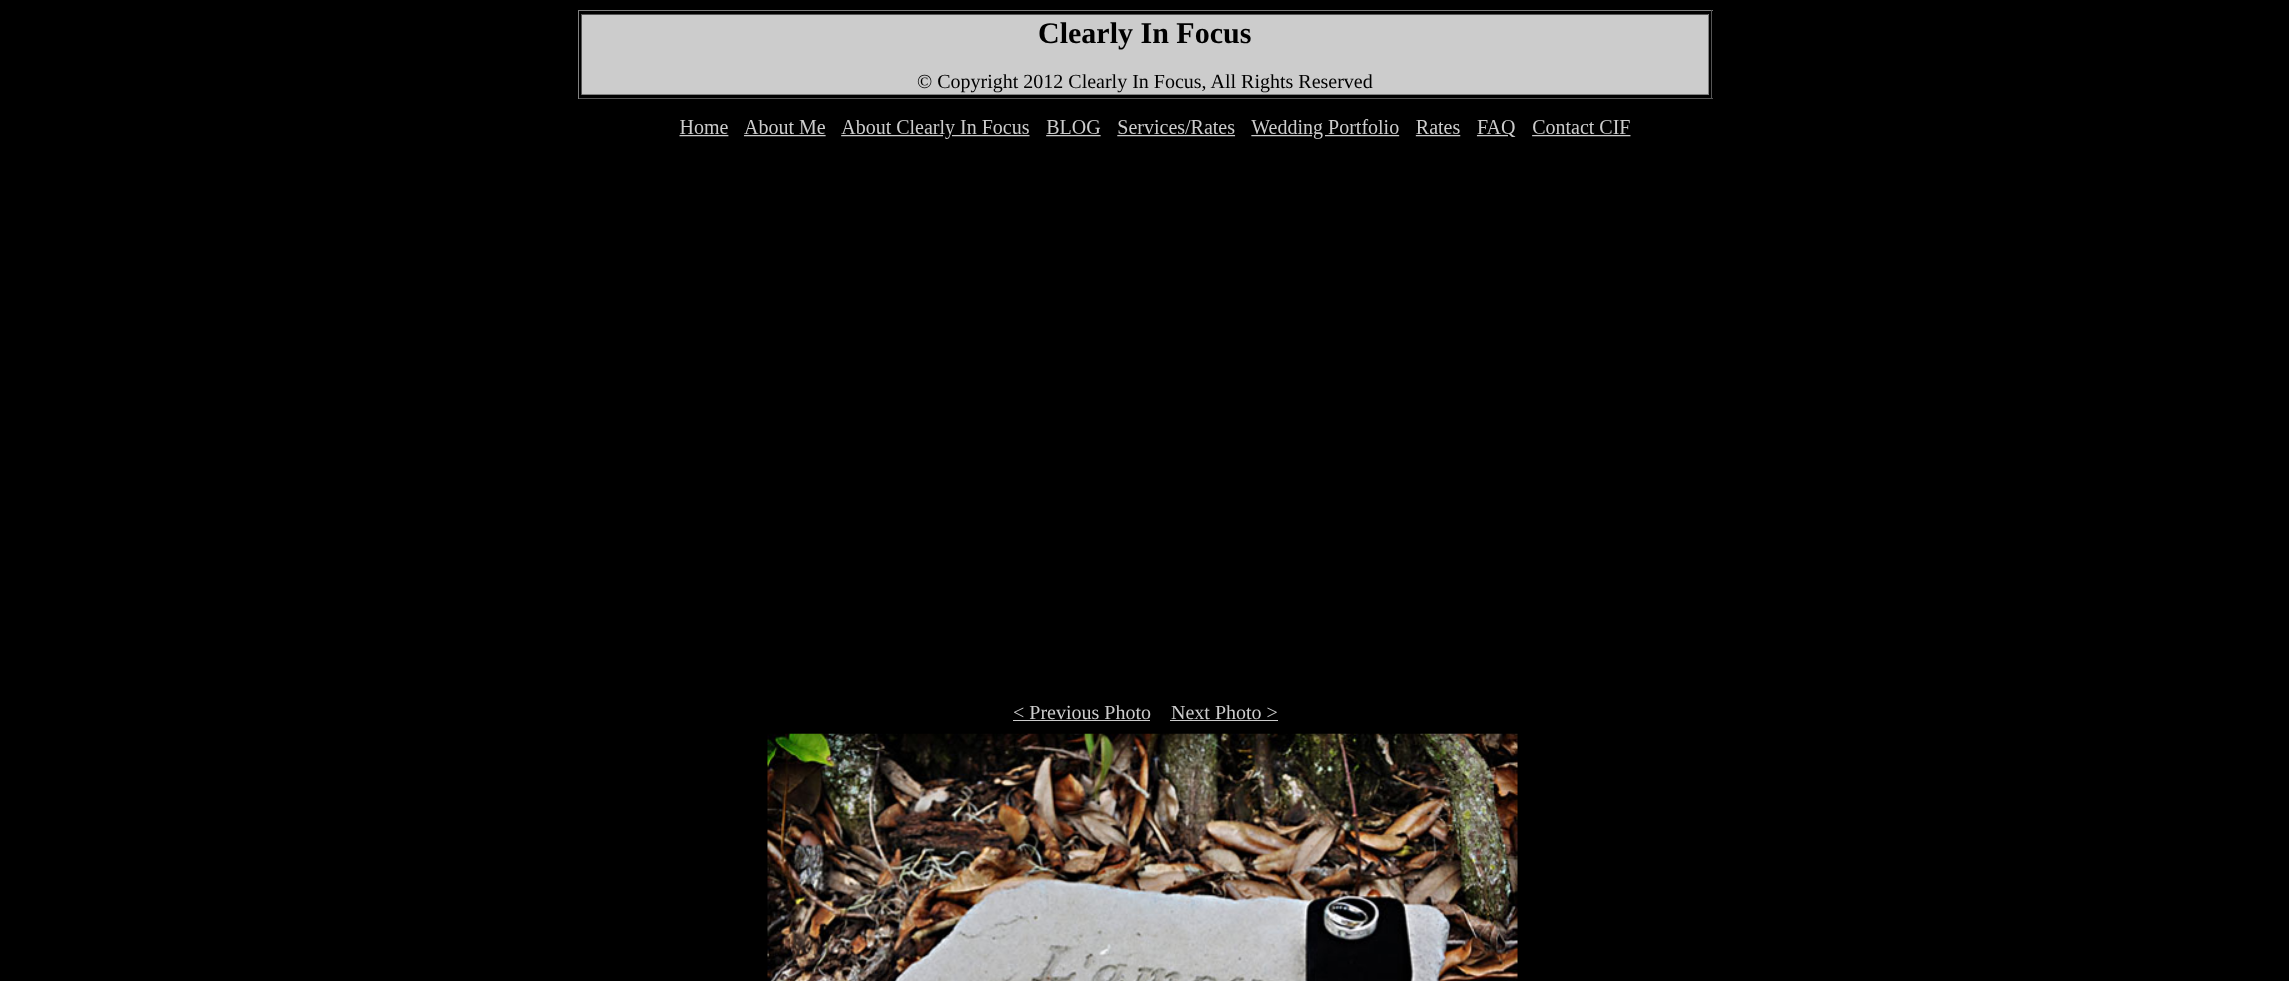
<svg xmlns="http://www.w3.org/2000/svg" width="2289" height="981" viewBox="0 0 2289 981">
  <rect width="100%" height="100%" fill="#000000"/>
  <rect x="578" y="10" width="1135" height="1" fill="#808080"/>
  <rect x="1711" y="10" width="1" height="89" fill="#555555"/>
  <rect x="578" y="98" width="1135" height="1" fill="#555555"/>
  <rect x="578" y="10" width="1" height="89" fill="#808080"/>
  <rect x="582" y="15" width="1126" height="79" fill="#cccccc"/>
  <rect x="581" y="14" width="1128" height="1" fill="#555555"/>
  <rect x="1708" y="14" width="1" height="81" fill="#808080"/>
  <rect x="581" y="94" width="1128" height="1" fill="#808080"/>
  <rect x="581" y="14" width="1" height="81" fill="#555555"/>
  <text x="1038" y="43" font-family="Liberation Serif" font-size="30" font-weight="bold" fill="#000000">Clearly In Focus</text>
  <text x="917" y="88" font-family="Liberation Serif" font-size="20" fill="#000000">© Copyright 2012 Clearly In Focus, All Rights Reserved</text>
  <image x="679" y="119" width="952" height="20" href="img1.png"/>
  <text x="1013" y="719" font-family="Liberation Serif" font-size="20" fill="#cccccc">&lt; Previous Photo</text>
  <rect x="1013" y="720" width="137" height="1" fill="#cccccc"/>
  <text x="1171" y="719" font-family="Liberation Serif" font-size="20" fill="#cccccc">Next Photo &gt;</text>
  <rect x="1170" y="720" width="108" height="1" fill="#cccccc"/>
  <image x="767" y="733" width="751" height="248" href="img2.png"/>
</svg>
